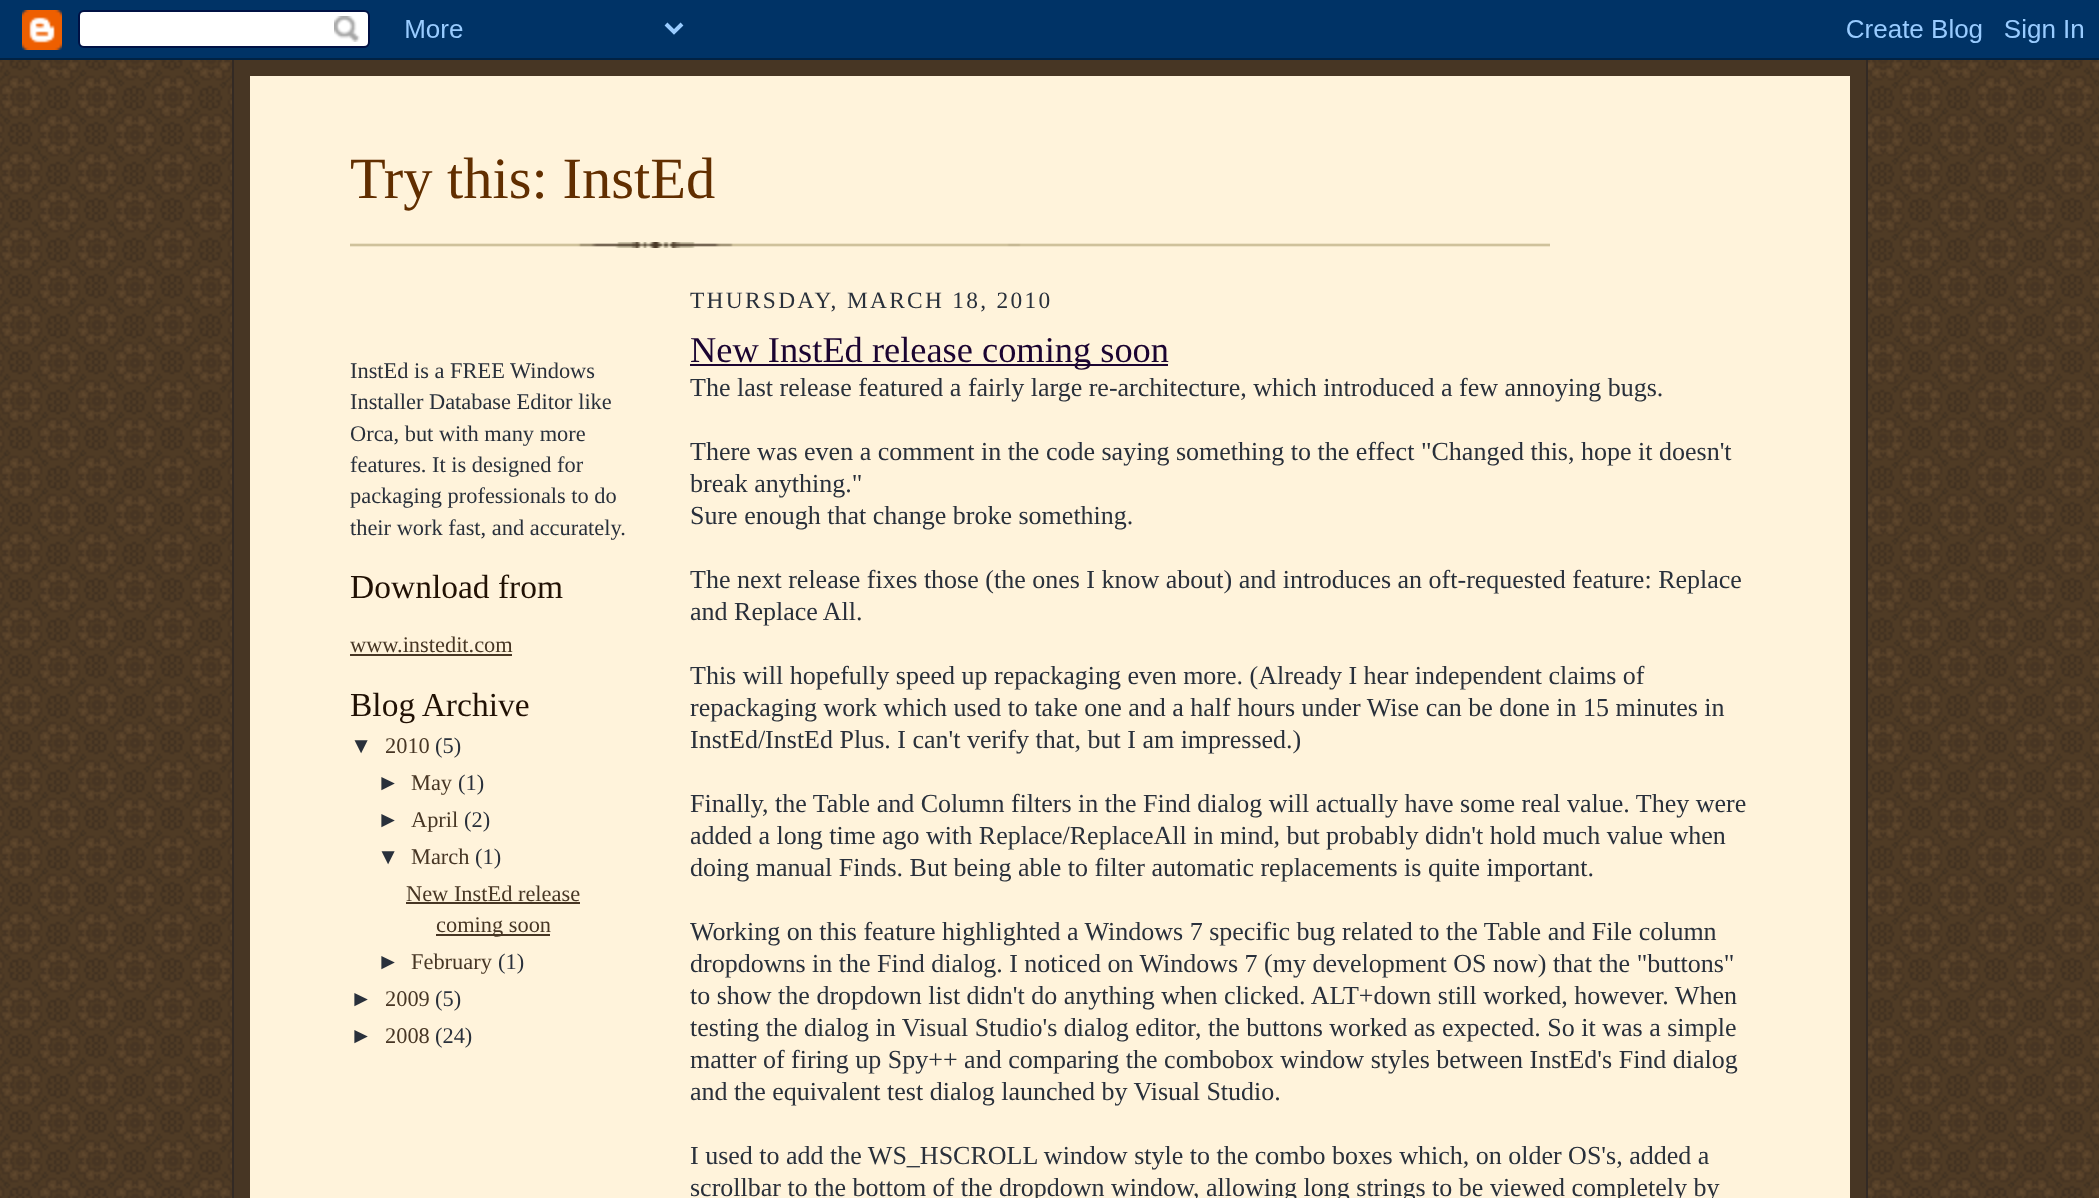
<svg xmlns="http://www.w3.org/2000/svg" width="2099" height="1198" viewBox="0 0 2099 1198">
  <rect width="100%" height="100%" fill="#ffffff"/>
  <image x="0" y="60" width="2099" height="1138" href="img1.png"/>
  <image x="0" y="0" width="2099" height="60" href="img2.png"/>
  <rect x="234" y="60" width="1632" height="1138" fill="#473624"/>
  <rect x="1866" y="60" width="2" height="1138" fill="#332a24"/>
  <rect x="232" y="60" width="2" height="1138" fill="#332a24"/>
  <rect x="250" y="76" width="1600" height="1122" fill="#fff3db"/>
  <image x="350" y="242" width="1200" height="6" href="img3.png"/>
  <text x="350" y="198" font-family="Liberation Serif" font-size="58.5" fill="#612e00">Try this: InstEd</text>
  <text x="350" y="378" font-family="Liberation Serif" font-size="22.4" fill="#29303b">InstEd is a FREE Windows</text>
  <text x="350" y="409" font-family="Liberation Serif" font-size="22.4" fill="#29303b">Installer Database Editor like</text>
  <text x="350" y="441" font-family="Liberation Serif" font-size="22.4" fill="#29303b">Orca, but with many more</text>
  <text x="350" y="472" font-family="Liberation Serif" font-size="22.4" fill="#29303b">features. It is designed for</text>
  <text x="350" y="503" font-family="Liberation Serif" font-size="22.4" fill="#29303b">packaging professionals to do</text>
  <text x="350" y="535" font-family="Liberation Serif" font-size="22.4" fill="#29303b">their work fast, and accurately.</text>
  <text x="350" y="598" font-family="Liberation Serif" font-size="33.5" fill="#211104">Download from</text>
  <text x="350" y="652" font-family="Liberation Serif" font-size="22.4" fill="#473624">www.instedit.com</text>
  <rect x="350" y="654" width="162" height="2" fill="#473624"/>
  <text x="350" y="716" font-family="Liberation Serif" font-size="33.5" fill="#211104">Blog Archive</text>
  <text x="350" y="753" font-family="Liberation Sans" font-size="22.4" fill="#29303b">▼</text>
  <text x="385" y="753" font-family="Liberation Serif" font-size="22.4" fill="#473624">2010</text>
  <text x="435" y="753" font-family="Liberation Serif" font-size="22.4" fill="#29303b">(5)</text>
  <text x="377" y="790" font-family="Liberation Sans" font-size="22.4" fill="#29303b">►</text>
  <text x="411" y="790" font-family="Liberation Serif" font-size="22.4" fill="#473624">May</text>
  <text x="458" y="790" font-family="Liberation Serif" font-size="22.4" fill="#29303b">(1)</text>
  <text x="377" y="827" font-family="Liberation Sans" font-size="22.4" fill="#29303b">►</text>
  <text x="411" y="827" font-family="Liberation Serif" font-size="22.4" fill="#473624">April</text>
  <text x="464" y="827" font-family="Liberation Serif" font-size="22.4" fill="#29303b">(2)</text>
  <text x="377" y="864" font-family="Liberation Sans" font-size="22.4" fill="#29303b">▼</text>
  <text x="411" y="864" font-family="Liberation Serif" font-size="22.4" fill="#473624">March</text>
  <text x="475" y="864" font-family="Liberation Serif" font-size="22.4" fill="#29303b">(1)</text>
  <text x="406" y="901" font-family="Liberation Serif" font-size="22.4" fill="#473624">New InstEd release</text>
  <rect x="406" y="902" width="174" height="2" fill="#473624"/>
  <rect x="436" y="934" width="114" height="2" fill="#473624"/>
  <text x="436" y="932" font-family="Liberation Serif" font-size="22.4" fill="#473624">coming soon</text>
  <text x="377" y="969" font-family="Liberation Sans" font-size="22.4" fill="#29303b">►</text>
  <text x="411" y="969" font-family="Liberation Serif" font-size="22.4" fill="#473624">February</text>
  <text x="498" y="969" font-family="Liberation Serif" font-size="22.4" fill="#29303b">(1)</text>
  <text x="350" y="1006" font-family="Liberation Sans" font-size="22.4" fill="#29303b">►</text>
  <text x="385" y="1006" font-family="Liberation Serif" font-size="22.4" fill="#473624">2009</text>
  <text x="435" y="1006" font-family="Liberation Serif" font-size="22.4" fill="#29303b">(5)</text>
  <text x="350" y="1043" font-family="Liberation Sans" font-size="22.4" fill="#29303b">►</text>
  <text x="385" y="1043" font-family="Liberation Serif" font-size="22.4" fill="#473624">2008</text>
  <text x="435" y="1043" font-family="Liberation Serif" font-size="22.4" fill="#29303b">(24)</text>
  <text x="690" y="308" font-family="Liberation Serif" font-size="23.4" letter-spacing="2.3" fill="#29303b">THURSDAY, MARCH 18, 2010</text>
  <rect x="690" y="364" width="478" height="2" fill="#1b0431"/>
  <text x="690" y="362" font-family="Liberation Serif" font-size="36.4" fill="#1b0431">New InstEd release coming soon</text>
  <text x="690" y="396" font-family="Liberation Serif" font-size="26" fill="#29303b">The last release featured a fairly large re-architecture, which introduced a few annoying bugs.</text>
  <text x="690" y="460" font-family="Liberation Serif" font-size="26" fill="#29303b">There was even a comment in the code saying something to the effect "Changed this, hope it doesn't</text>
  <text x="690" y="492" font-family="Liberation Serif" font-size="26" fill="#29303b">break anything."</text>
  <text x="690" y="524" font-family="Liberation Serif" font-size="26" fill="#29303b">Sure enough that change broke something.</text>
  <text x="690" y="588" font-family="Liberation Serif" font-size="26" fill="#29303b">The next release fixes those (the ones I know about) and introduces an oft-requested feature: Replace</text>
  <text x="690" y="620" font-family="Liberation Serif" font-size="26" fill="#29303b">and Replace All.</text>
  <text x="690" y="684" font-family="Liberation Serif" font-size="26" fill="#29303b">This will hopefully speed up repackaging even more. (Already I hear independent claims of</text>
  <text x="690" y="716" font-family="Liberation Serif" font-size="26" fill="#29303b">repackaging work which used to take one and a half hours under Wise can be done in 15 minutes in</text>
  <text x="690" y="748" font-family="Liberation Serif" font-size="26" fill="#29303b">InstEd/InstEd Plus. I can't verify that, but I am impressed.)</text>
  <text x="690" y="812" font-family="Liberation Serif" font-size="26" fill="#29303b">Finally, the Table and Column filters in the Find dialog will actually have some real value. They were</text>
  <text x="690" y="844" font-family="Liberation Serif" font-size="26" fill="#29303b">added a long time ago with Replace/ReplaceAll in mind, but probably didn't hold much value when</text>
  <text x="690" y="876" font-family="Liberation Serif" font-size="26" fill="#29303b">doing manual Finds. But being able to filter automatic replacements is quite important.</text>
  <text x="690" y="940" font-family="Liberation Serif" font-size="26" fill="#29303b">Working on this feature highlighted a Windows 7 specific bug related to the Table and File column</text>
  <text x="690" y="972" font-family="Liberation Serif" font-size="26" fill="#29303b">dropdowns in the Find dialog. I noticed on Windows 7 (my development OS now) that the "buttons"</text>
  <text x="690" y="1004" font-family="Liberation Serif" font-size="26" fill="#29303b">to show the dropdown list didn't do anything when clicked. ALT+down still worked, however. When</text>
  <text x="690" y="1036" font-family="Liberation Serif" font-size="26" fill="#29303b">testing the dialog in Visual Studio's dialog editor, the buttons worked as expected. So it was a simple</text>
  <text x="690" y="1068" font-family="Liberation Serif" font-size="26" fill="#29303b">matter of firing up Spy++ and comparing the combobox window styles between InstEd's Find dialog</text>
  <text x="690" y="1100" font-family="Liberation Serif" font-size="26" fill="#29303b">and the equivalent test dialog launched by Visual Studio.</text>
  <text x="690" y="1164" font-family="Liberation Serif" font-size="26" fill="#29303b">I used to add the WS_HSCROLL window style to the combo boxes which, on older OS's, added a</text>
  <text x="690" y="1196" font-family="Liberation Serif" font-size="26" fill="#29303b">scrollbar to the bottom of the dropdown window, allowing long strings to be viewed completely by</text>
</svg>
